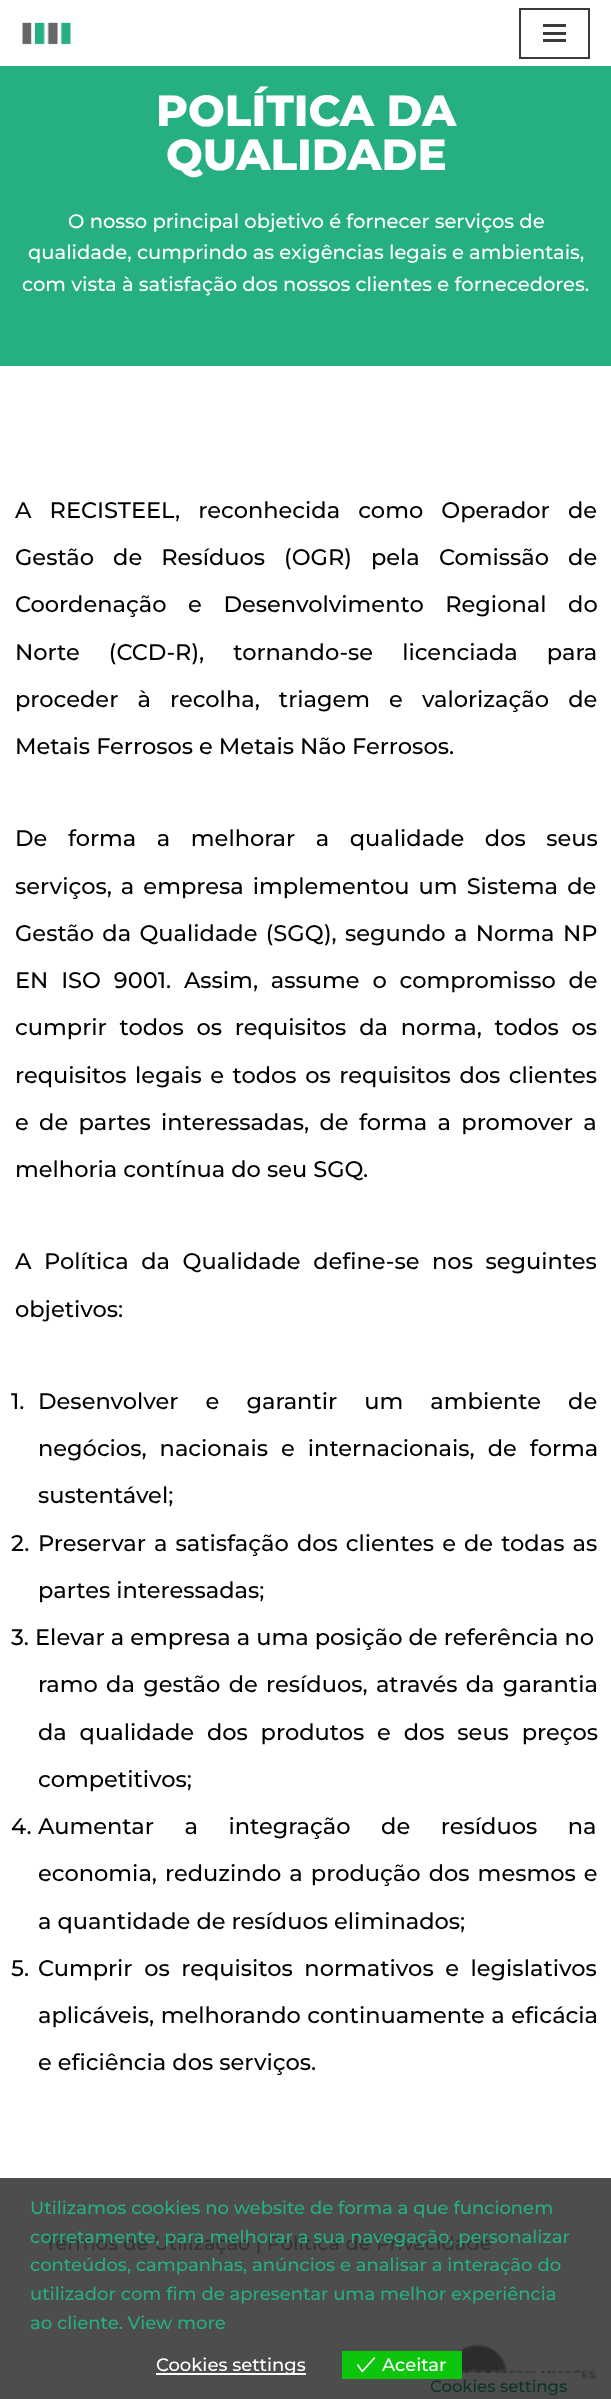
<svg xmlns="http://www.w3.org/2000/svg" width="611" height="2399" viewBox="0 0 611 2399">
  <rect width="100%" height="100%" fill="#ffffff"/>
  <rect x="0" y="2178" width="611" height="221" fill="#4d4d4d"/>
  <image x="22" y="22" width="49" height="23" href="img1.png"/>
  <rect x="520" y="9" width="69" height="49" fill="none" stroke="#3a3a3a" stroke-width="2"/>
  <rect x="543" y="24" width="23" height="3" fill="#3a3a3a"/>
  <rect x="543" y="32" width="23" height="3" fill="#3a3a3a"/>
  <rect x="543" y="39" width="23" height="3" fill="#3a3a3a"/>
  <rect x="0" y="66" width="611" height="300" fill="#26af81"/>
  <text x="156" y="126" font-family="Montserrat" font-size="43.5" font-weight="800" fill="#ffffff">POLÍTICA DA</text>
  <text x="166" y="170" font-family="Montserrat" font-size="43.5" font-weight="800" fill="#ffffff">QUALIDADE</text>
  <text x="68" y="228" font-family="Montserrat" font-size="19.5" font-weight="500" fill="#ffffff">O nosso principal objetivo é fornecer serviços de</text>
  <text x="28" y="259" font-family="Montserrat" font-size="19.5" font-weight="500" fill="#ffffff">qualidade, cumprindo as exigências legais e ambientais,</text>
  <text x="22" y="291" font-family="Montserrat" font-size="19.5" font-weight="500" fill="#ffffff">com vista à satisfação dos nossos clientes e fornecedores.</text>
  <text x="15" y="518" word-spacing="12" font-family="Montserrat" font-size="22.5" font-weight="500" fill="#000000">A RECISTEEL, reconhecida como Operador de</text>
  <text x="15" y="565" word-spacing="13" font-family="Montserrat" font-size="22.5" font-weight="500" fill="#000000">Gestão de Resíduos (OGR) pela Comissão de</text>
  <text x="15" y="612" word-spacing="15.5" font-family="Montserrat" font-size="22.5" font-weight="500" fill="#000000">Coordenação e Desenvolvimento Regional do</text>
  <text x="15" y="660" word-spacing="23" font-family="Montserrat" font-size="22.5" font-weight="500" fill="#000000">Norte (CCD-R), tornando-se licenciada para</text>
  <text x="15" y="707" word-spacing="13" font-family="Montserrat" font-size="22.5" font-weight="500" fill="#000000">proceder à recolha, triagem e valorização de</text>
  <text x="15" y="754" font-family="Montserrat" font-size="22.5" font-weight="500" fill="#000000">Metais Ferrosos e Metais Não Ferrosos.</text>
  <text x="15" y="846" word-spacing="14.5" font-family="Montserrat" font-size="22.5" font-weight="500" fill="#000000">De forma a melhorar a qualidade dos seus</text>
  <text x="15" y="894" word-spacing="3" font-family="Montserrat" font-size="22.5" font-weight="500" fill="#000000">serviços, a empresa implementou um Sistema de</text>
  <text x="15" y="941" word-spacing="2.25" font-family="Montserrat" font-size="22.5" font-weight="500" fill="#000000">Gestão da Qualidade (SGQ), segundo a Norma NP</text>
  <text x="15" y="988" word-spacing="6.75" font-family="Montserrat" font-size="22.5" font-weight="500" fill="#000000">EN ISO 9001. Assim, assume o compromisso de</text>
  <text x="15" y="1035" word-spacing="6.75" font-family="Montserrat" font-size="22.5" font-weight="500" fill="#000000">cumprir todos os requisitos da norma, todos os</text>
  <text x="15" y="1083" word-spacing="2.5" font-family="Montserrat" font-size="22.5" font-weight="500" fill="#000000">requisitos legais e todos os requisitos dos clientes</text>
  <text x="15" y="1130" word-spacing="4.25" font-family="Montserrat" font-size="22.5" font-weight="500" fill="#000000">e de partes interessadas, de forma a promover a</text>
  <text x="15" y="1177" font-family="Montserrat" font-size="22.5" font-weight="500" fill="#000000">melhoria contínua do seu SGQ.</text>
  <text x="15" y="1269" word-spacing="6.5" font-family="Montserrat" font-size="22.5" font-weight="500" fill="#000000">A Política da Qualidade define-se nos seguintes</text>
  <text x="15" y="1317" font-family="Montserrat" font-size="22.5" font-weight="500" fill="#000000">objetivos:</text>
  <text x="11" y="1409" font-family="Montserrat" font-size="22.5" font-weight="500" fill="#000000">1.</text>
  <text x="38" y="1409" word-spacing="21" font-family="Montserrat" font-size="22.5" font-weight="500" fill="#000000">Desenvolver e garantir um ambiente de</text>
  <text x="38" y="1456" word-spacing="7" font-family="Montserrat" font-size="22.5" font-weight="500" fill="#000000">negócios, nacionais e internacionais, de forma</text>
  <text x="38" y="1503" font-family="Montserrat" font-size="22.5" font-weight="500" fill="#000000">sustentável;</text>
  <text x="11" y="1551" font-family="Montserrat" font-size="22.5" font-weight="500" fill="#000000">2.</text>
  <text x="38" y="1551" word-spacing="2" font-family="Montserrat" font-size="22.5" font-weight="500" fill="#000000">Preservar a satisfação dos clientes e de todas as</text>
  <text x="38" y="1598" font-family="Montserrat" font-size="22.5" font-weight="500" fill="#000000">partes interessadas;</text>
  <text x="11" y="1645" font-family="Montserrat" font-size="22.5" font-weight="500" fill="#000000">3. Elevar a empresa a uma posição de referência no</text>
  <text x="38" y="1692" word-spacing="2.25" font-family="Montserrat" font-size="22.5" font-weight="500" fill="#000000">ramo da gestão de resíduos, através da garantia</text>
  <text x="38" y="1740" word-spacing="6.75" font-family="Montserrat" font-size="22.5" font-weight="500" fill="#000000">da qualidade dos produtos e dos seus preços</text>
  <text x="38" y="1787" font-family="Montserrat" font-size="22.5" font-weight="500" fill="#000000">competitivos;</text>
  <text x="11" y="1834" font-family="Montserrat" font-size="22.5" font-weight="500" fill="#000000">4.</text>
  <text x="38" y="1834" word-spacing="24.5" font-family="Montserrat" font-size="22.5" font-weight="500" fill="#000000">Aumentar a integração de resíduos na</text>
  <text x="38" y="1881" word-spacing="2" font-family="Montserrat" font-size="22.5" font-weight="500" fill="#000000">economia, reduzindo a produção dos mesmos e</text>
  <text x="38" y="1929" font-family="Montserrat" font-size="22.5" font-weight="500" fill="#000000">a quantidade de resíduos eliminados;</text>
  <text x="11" y="1976" font-family="Montserrat" font-size="22.5" font-weight="500" fill="#000000">5.</text>
  <text x="38" y="1976" word-spacing="5.5" font-family="Montserrat" font-size="22.5" font-weight="500" fill="#000000">Cumprir os requisitos normativos e legislativos</text>
  <text x="38" y="2023" word-spacing="0.5" font-family="Montserrat" font-size="22.5" font-weight="500" fill="#000000">aplicáveis, melhorando continuamente a eficácia</text>
  <text x="38" y="2070" font-family="Montserrat" font-size="22.5" font-weight="500" fill="#000000">e eficiência dos serviços.</text>
  <text x="45" y="2250" font-family="Montserrat" font-size="19.5" font-weight="500" fill="#343434">Termos de Utilização | Política de Privacidade</text>
  <image x="458" y="2344" width="138" height="37" href="img2.png"/>
  <text x="30" y="2214" font-family="Montserrat" font-size="18" font-weight="500" fill="#26af81">Utilizamos cookies no website de forma a que funcionem</text>
  <text x="30" y="2243" font-family="Montserrat" font-size="18" font-weight="500" fill="#26af81">corretamente, para melhorar a sua navegação, personalizar</text>
  <text x="30" y="2271" font-family="Montserrat" font-size="18" font-weight="500" fill="#26af81">conteúdos, campanhas, anúncios e analisar a interação do</text>
  <text x="30" y="2300" font-family="Montserrat" font-size="18" font-weight="500" fill="#26af81">utilizador com fim de apresentar uma melhor experiência</text>
  <text x="30" y="2329" font-family="Montserrat" font-size="18" font-weight="500" fill="#26af81">ao cliente. View more</text>
  <rect x="156" y="2373" width="150" height="2" fill="#ffffff"/>
  <text x="156" y="2371" font-family="Montserrat" font-size="18" font-weight="500" fill="#ffffff">Cookies settings</text>
  <rect x="458" y="2373" width="124" height="8" fill="#4d4d4d"/>
  <rect x="342" y="2351" width="120" height="28" fill="#0ec50e"/>
  <image x="357" y="2357" width="18" height="16" href="img3.png"/>
  <text x="382" y="2371" font-family="Montserrat" font-size="18" font-weight="500" fill="#ffffff">Aceitar</text>
  <text x="430" y="2392" font-family="Montserrat" font-size="16.5" font-weight="500" fill="#0b3527">Cookies settings</text>
</svg>
